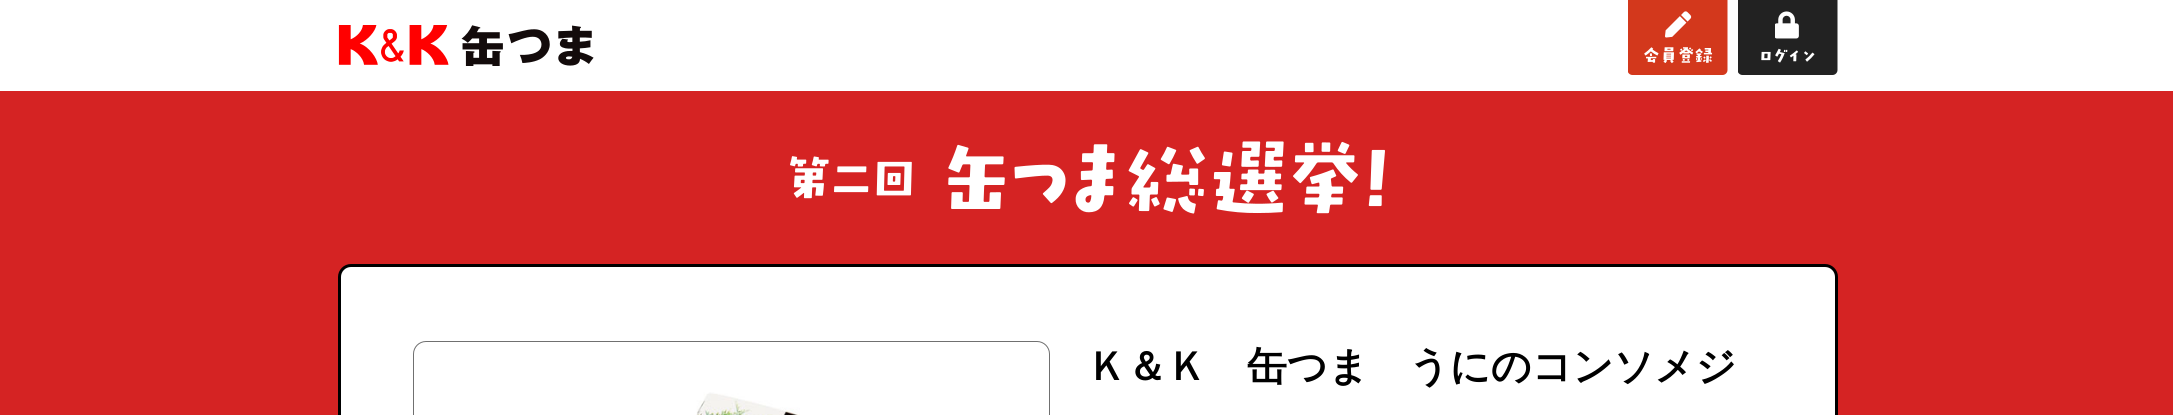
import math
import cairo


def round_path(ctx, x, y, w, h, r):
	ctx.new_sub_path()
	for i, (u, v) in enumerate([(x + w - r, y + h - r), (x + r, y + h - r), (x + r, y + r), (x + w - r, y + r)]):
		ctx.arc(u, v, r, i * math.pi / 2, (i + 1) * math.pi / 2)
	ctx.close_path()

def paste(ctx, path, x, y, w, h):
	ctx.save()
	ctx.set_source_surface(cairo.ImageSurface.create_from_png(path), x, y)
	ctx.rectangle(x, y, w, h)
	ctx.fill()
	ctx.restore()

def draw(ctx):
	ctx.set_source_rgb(1, 1, 1)
	ctx.paint()
	paste(ctx, 'media/1.png', 338, 25, 256, 41)
	paste(ctx, 'media/2.png', 1628, 0, 100, 75)
	paste(ctx, 'media/3.png', 1738, 0, 100, 75)
	ctx.set_source_rgb(0.835, 0.137, 0.137)
	ctx.rectangle(0, 91, 2173, 324)
	ctx.fill()
	paste(ctx, 'media/4.png', 790, 141, 595, 73)
	ctx.set_source_rgb(1, 1, 1)
	round_path(ctx, 339.5, 265.5, 1497, 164, 11.5)
	ctx.fill_preserve()
	ctx.set_source_rgb(0, 0, 0)
	ctx.set_line_width(3)
	ctx.stroke()
	round_path(ctx, 413.5, 341.5, 636, 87, 12.5)
	ctx.set_source_rgb(0.439, 0.439, 0.439)
	ctx.set_line_width(1)
	ctx.stroke()
	paste(ctx, 'media/5.png', 696, 392, 104, 23)
	ctx.select_font_face('WenQuanYi Zen Hei', cairo.FONT_SLANT_NORMAL, cairo.FONT_WEIGHT_BOLD)
	ctx.set_font_size(40)
	ctx.set_source_rgb(0, 0, 0)
	ctx.move_to(1087, 380)
	ctx.show_text('Ｋ＆Ｋ　缶つま　うにのコンソメジ')


surface = cairo.ImageSurface(cairo.FORMAT_RGB24, 2173, 415)
ctx = cairo.Context(surface)
options = cairo.FontOptions()
options.set_hint_metrics(cairo.HINT_METRICS_OFF)
options.set_hint_style(cairo.HINT_STYLE_NONE)
ctx.set_font_options(options)
ctx.set_miter_limit(4)
draw(ctx)
surface.write_to_png('image.png')
